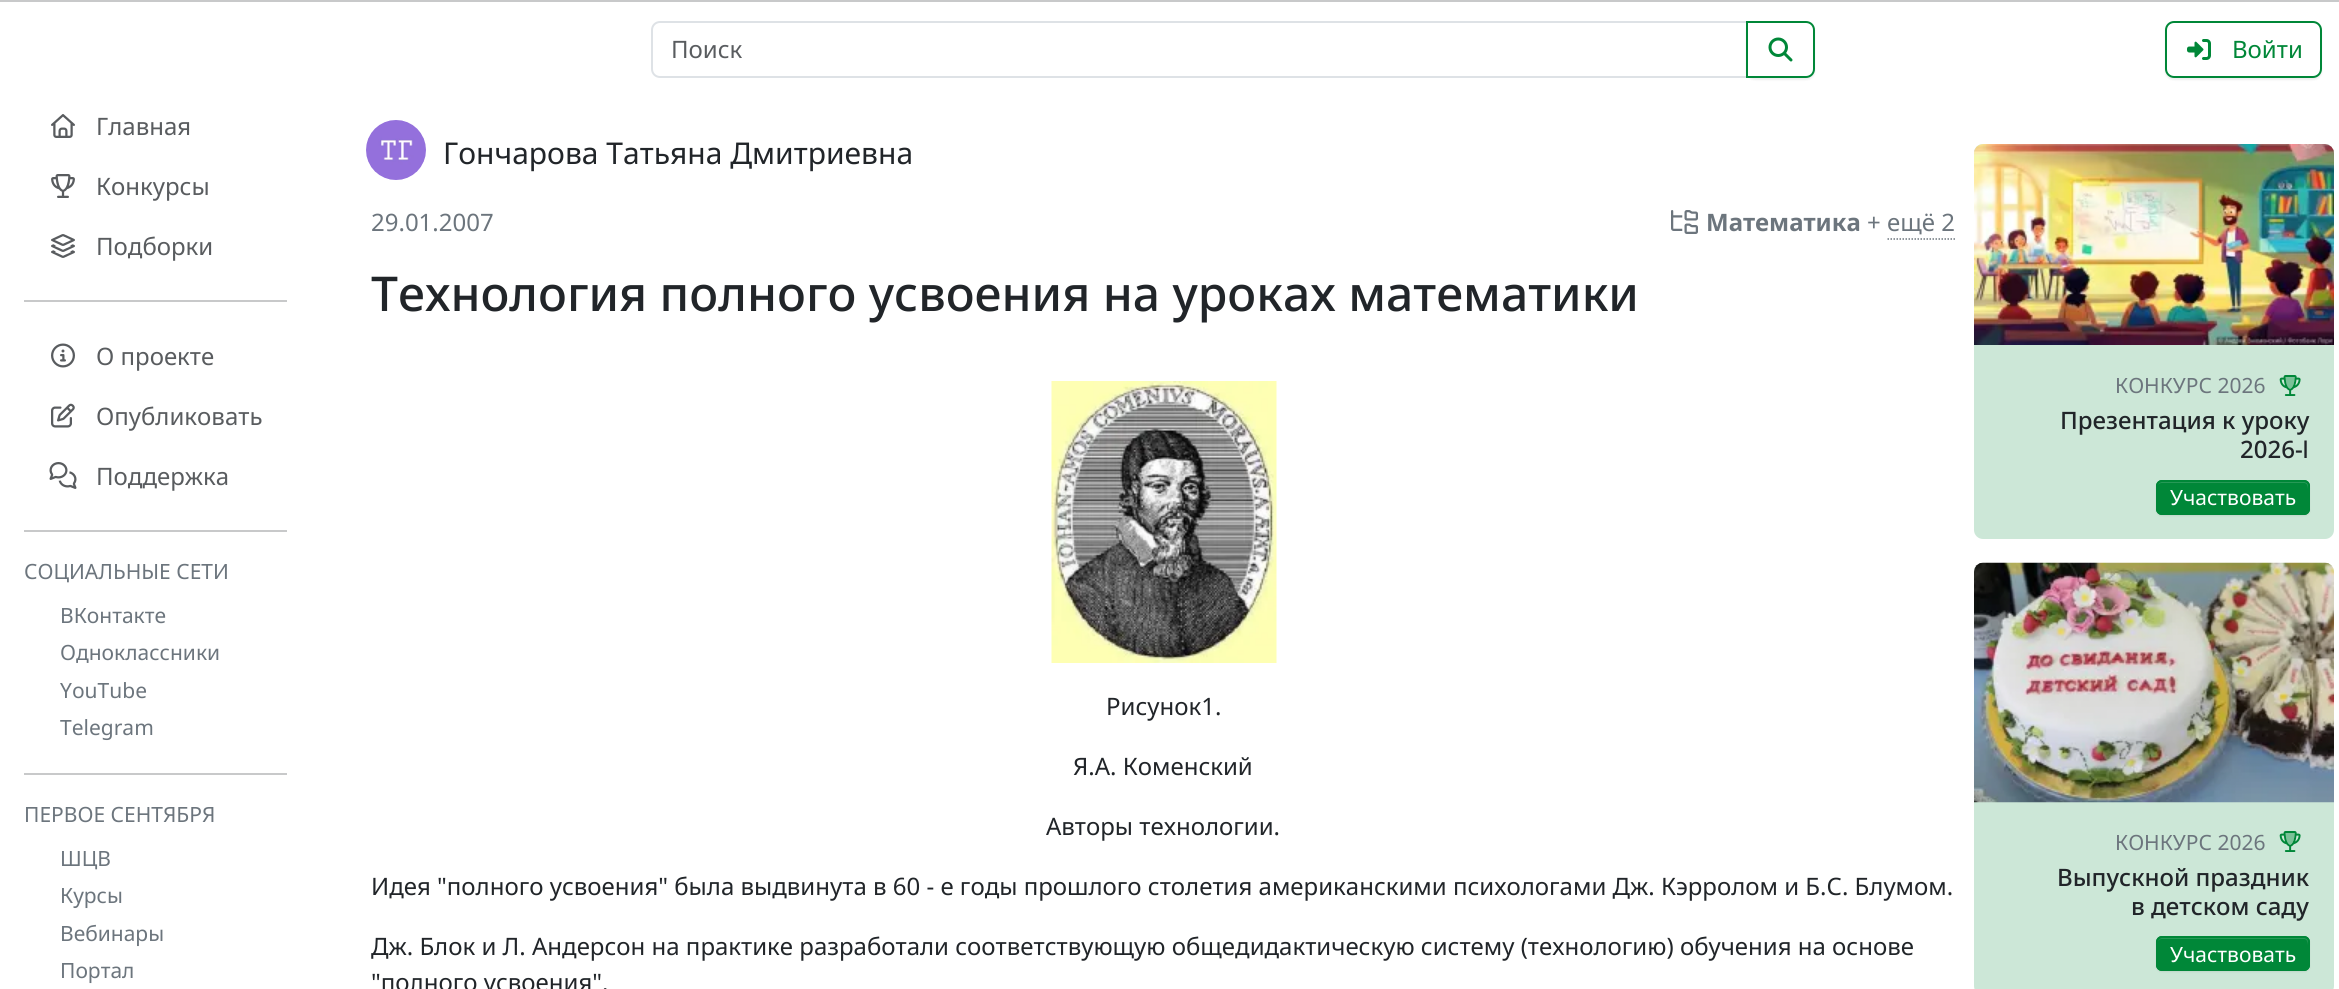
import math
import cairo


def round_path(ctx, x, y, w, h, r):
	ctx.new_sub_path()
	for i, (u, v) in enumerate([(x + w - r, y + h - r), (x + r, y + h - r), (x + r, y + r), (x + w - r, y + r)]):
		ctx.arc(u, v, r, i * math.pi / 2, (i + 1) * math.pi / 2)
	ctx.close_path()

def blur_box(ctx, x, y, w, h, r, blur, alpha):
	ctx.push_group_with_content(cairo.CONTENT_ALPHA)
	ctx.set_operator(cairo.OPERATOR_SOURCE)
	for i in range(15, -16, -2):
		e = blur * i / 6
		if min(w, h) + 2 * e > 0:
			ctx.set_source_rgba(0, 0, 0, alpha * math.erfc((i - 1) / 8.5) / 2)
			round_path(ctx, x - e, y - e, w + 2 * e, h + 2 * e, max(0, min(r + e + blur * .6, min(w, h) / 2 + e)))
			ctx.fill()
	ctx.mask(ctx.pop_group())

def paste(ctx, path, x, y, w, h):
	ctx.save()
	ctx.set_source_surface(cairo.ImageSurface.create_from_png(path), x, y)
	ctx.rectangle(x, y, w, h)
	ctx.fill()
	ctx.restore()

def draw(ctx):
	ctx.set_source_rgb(1, 1, 1)
	ctx.paint()
	ctx.set_source_rgb(0.784, 0.788, 0.792)
	ctx.rectangle(0, 0, 2339, 2)
	ctx.fill()
	ctx.new_path()
	ctx.move_to(660, 22)
	ctx.line_to(1747, 22)
	ctx.line_to(1747, 77)
	ctx.line_to(660, 77)
	ctx.curve_to(655.5, 77, 652, 73.5, 652, 69)
	ctx.line_to(652, 30)
	ctx.curve_to(652, 25.5, 655.5, 22, 660, 22)
	ctx.close_path()
	ctx.set_source_rgb(0.871, 0.886, 0.902)
	ctx.stroke()
	ctx.select_font_face('Noto Sans')
	ctx.set_font_size(24)
	ctx.set_source_rgb(0.349, 0.361, 0.373)
	ctx.move_to(671, 58)
	ctx.show_text('Поиск')
	ctx.save()
	ctx.set_fill_rule(cairo.FILL_RULE_EVEN_ODD)
	ctx.new_path()
	ctx.move_to(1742, 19)
	ctx.line_to(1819, 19)
	ctx.line_to(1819, 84)
	ctx.line_to(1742, 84)
	ctx.close_path()
	ctx.move_to(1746, 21)
	ctx.line_to(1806, 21)
	ctx.curve_to(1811, 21, 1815, 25, 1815, 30)
	ctx.line_to(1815, 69)
	ctx.curve_to(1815, 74, 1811, 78, 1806, 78)
	ctx.line_to(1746, 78)
	ctx.close_path()
	ctx.clip()
	ctx.set_source_rgb(0, 0, 0)
	blur_box(ctx, 1746, 23, 69, 57, 9, 1, 0.07)
	ctx.restore()
	ctx.new_path()
	ctx.move_to(1747, 22)
	ctx.line_to(1806, 22)
	ctx.curve_to(1810.5, 22, 1814, 25.5, 1814, 30)
	ctx.line_to(1814, 69)
	ctx.curve_to(1814, 73.5, 1810.5, 77, 1806, 77)
	ctx.line_to(1747, 77)
	ctx.close_path()
	ctx.set_source_rgb(0, 0.529, 0.22)
	ctx.stroke()
	paste(ctx, 'media/1.png', 1768, 37, 25, 25)
	ctx.save()
	ctx.set_fill_rule(cairo.FILL_RULE_EVEN_ODD)
	ctx.new_path()
	ctx.move_to(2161, 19)
	ctx.line_to(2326, 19)
	ctx.line_to(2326, 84)
	ctx.line_to(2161, 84)
	ctx.close_path()
	ctx.move_to(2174, 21)
	ctx.line_to(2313, 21)
	ctx.curve_to(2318, 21, 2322, 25, 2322, 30)
	ctx.line_to(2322, 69)
	ctx.curve_to(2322, 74, 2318, 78, 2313, 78)
	ctx.line_to(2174, 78)
	ctx.curve_to(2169, 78, 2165, 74, 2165, 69)
	ctx.line_to(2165, 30)
	ctx.curve_to(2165, 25, 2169, 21, 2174, 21)
	ctx.close_path()
	ctx.clip()
	ctx.set_source_rgb(0, 0, 0)
	blur_box(ctx, 2165, 23, 157, 57, 9, 1, 0.07)
	ctx.restore()
	round_path(ctx, 2166, 22, 155, 55, 8)
	ctx.stroke()
	paste(ctx, 'media/2.png', 2187, 39, 24, 21)
	ctx.move_to(2232, 58)
	ctx.show_text('Войти')
	paste(ctx, 'media/3.png', 51, 114, 24, 24)
	ctx.set_source_rgb(0.349, 0.361, 0.373)
	ctx.move_to(96, 135)
	ctx.show_text('Главная')
	paste(ctx, 'media/4.png', 51, 174, 24, 24)
	ctx.move_to(96, 195)
	ctx.show_text('Конкурсы')
	paste(ctx, 'media/5.png', 51, 234, 24, 24)
	ctx.move_to(96, 255)
	ctx.show_text('Подборки')
	ctx.set_source_rgb(0.784, 0.788, 0.792)
	ctx.rectangle(24, 300, 263, 2)
	ctx.fill()
	paste(ctx, 'media/6.png', 51, 343, 24, 25)
	ctx.set_source_rgb(0.349, 0.361, 0.373)
	ctx.move_to(96, 365)
	ctx.show_text('О проекте')
	paste(ctx, 'media/7.png', 51, 403, 24, 25)
	ctx.move_to(96, 425)
	ctx.show_text('Опубликовать')
	paste(ctx, 'media/8.png', 49, 462, 28, 27)
	ctx.move_to(96, 485)
	ctx.show_text('Поддержка')
	ctx.set_source_rgb(0.784, 0.788, 0.792)
	ctx.rectangle(24, 530, 263, 2)
	ctx.fill()
	ctx.set_font_size(21)
	ctx.set_source_rgb(0.424, 0.459, 0.49)
	for x, y, s in [
		(24, 579, 'СОЦИАЛЬНЫЕ СЕТИ'),
		(60, 623, 'ВКонтакте'),
		(60, 660, 'Одноклассники'),
		(60, 698, 'YouTube'),
		(60, 735, 'Telegram'),
	]:
		ctx.move_to(x, y)
		ctx.show_text(s)
	ctx.set_source_rgb(0.784, 0.788, 0.792)
	ctx.rectangle(24, 773, 263, 2)
	ctx.fill()
	ctx.set_source_rgb(0.424, 0.459, 0.49)
	for x, y, s in [
		(24, 822, 'ПЕРВОЕ СЕНТЯБРЯ'),
		(60, 866, 'ШЦВ'),
		(60, 903, 'Курсы'),
		(60, 941, 'Вебинары'),
		(60, 978, 'Портал'),
	]:
		ctx.move_to(x, y)
		ctx.show_text(s)
	paste(ctx, 'media/9.png', 366, 120, 60, 60)
	ctx.set_font_size(30)
	ctx.set_source_rgb(0.129, 0.145, 0.161)
	ctx.move_to(443, 164)
	ctx.show_text('Гончарова Татьяна Дмитриевна')
	ctx.set_font_size(24)
	ctx.set_source_rgb(0.424, 0.459, 0.49)
	ctx.move_to(371, 231)
	ctx.show_text('29.01.2007')
	paste(ctx, 'media/10.png', 1671, 210, 27, 24)
	ctx.select_font_face('Noto Sans', cairo.FONT_SLANT_NORMAL, cairo.FONT_WEIGHT_BOLD)
	ctx.move_to(1706, 231)
	ctx.show_text('Математика')
	ctx.select_font_face('Noto Sans')
	ctx.move_to(1867, 231)
	ctx.show_text('+ ещё 2')
	ctx.new_path()
	ctx.move_to(1887.5, 239)
	ctx.line_to(1955, 239)
	ctx.set_line_width(1.5)
	ctx.set_dash([1.5, 1.5])
	ctx.stroke()
	ctx.select_font_face('Noto Sans Medium')
	ctx.set_font_size(48)
	ctx.set_source_rgb(0.129, 0.145, 0.161)
	ctx.move_to(371, 311)
	ctx.show_text('Технология полного усвоения на уроках математики')
	paste(ctx, 'media/11.png', 1051, 381, 226, 282)
	ctx.select_font_face('Noto Sans')
	ctx.set_font_size(24)
	for x, y, s in [
		(1106, 715, 'Рисунок1.'),
		(1073, 775, 'Я.А. Коменский'),
		(1046, 835, 'Авторы технологии.'),
		(371, 895, 'Идея "полного усвоения" была выдвинута в 60 - е годы прошлого столетия американскими психологами Дж. Кэрролом и Б.С. Блумом.'),
		(371, 955, 'Дж. Блок и Л. Андерсон на практике разработали соответствующую общедидактическую систему (технологию) обучения на основе'),
		(371, 991, '"полного усвоения".'),
	]:
		ctx.move_to(x, y)
		ctx.show_text(s)
	ctx.set_source_rgb(0.8, 0.906, 0.843)
	round_path(ctx, 1974, 144, 360, 395, 9)
	ctx.fill()
	paste(ctx, 'media/12.png', 1974, 144, 360, 201)
	ctx.set_font_size(21)
	ctx.set_source_rgb(0.424, 0.459, 0.49)
	ctx.move_to(2115, 393)
	ctx.show_text('КОНКУРС 2026')
	paste(ctx, 'media/13.png', 2279, 375, 22, 21)
	ctx.select_font_face('Noto Sans Medium')
	ctx.set_font_size(24)
	ctx.set_source_rgb(0.129, 0.145, 0.161)
	ctx.move_to(2060, 429)
	ctx.show_text('Презентация к уроку')
	ctx.move_to(2240, 458)
	ctx.show_text('2026-')
	ctx.select_font_face('DejaVu Sans')
	ctx.move_to(2302, 458)
	ctx.show_text('Ⅰ')
	ctx.set_source_rgb(0, 0, 0)
	blur_box(ctx, 2156, 482, 154, 34, 6, 1, 0.07)
	ctx.set_source_rgb(0, 0.529, 0.22)
	round_path(ctx, 2156, 480, 154, 35, 6)
	ctx.fill()
	ctx.set_source_rgb(0.149, 0.6, 0.337)
	ctx.new_path()
	ctx.move_to(2162, 483)
	ctx.line_to(2304, 483)
	ctx.curve_to(2309, 483, 2308, 492, 2308, 495)
	ctx.line_to(2308, 511)
	ctx.curve_to(2309, 510, 2309, 509, 2309, 508)
	ctx.line_to(2309, 487)
	ctx.curve_to(2309, 484, 2307, 482, 2304, 482)
	ctx.line_to(2162, 482)
	ctx.curve_to(2159, 482, 2157, 484, 2157, 487)
	ctx.line_to(2157, 488)
	ctx.curve_to(2157, 485, 2159, 483, 2162, 483)
	ctx.close_path()
	ctx.fill()
	round_path(ctx, 2157, 481, 152, 33, 5)
	ctx.set_source_rgb(0, 0.529, 0.22)
	ctx.set_line_width(2)
	ctx.set_dash([])
	ctx.stroke()
	ctx.select_font_face('Noto Sans')
	ctx.set_font_size(21)
	ctx.set_source_rgb(1, 1, 1)
	ctx.move_to(2170, 505)
	ctx.show_text('Участвовать')
	ctx.set_source_rgb(0.8, 0.906, 0.843)
	round_path(ctx, 1974, 563, 360, 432, 9)
	ctx.fill()
	paste(ctx, 'media/14.png', 1974, 562, 360, 241)
	ctx.set_source_rgb(0.424, 0.459, 0.49)
	ctx.move_to(2115, 850)
	ctx.show_text('КОНКУРС 2026')
	paste(ctx, 'media/13.png', 2279, 831, 22, 21)
	ctx.select_font_face('Noto Sans Medium')
	ctx.set_font_size(24)
	ctx.set_source_rgb(0.129, 0.145, 0.161)
	ctx.move_to(2057, 886)
	ctx.show_text('Выпускной праздник')
	ctx.move_to(2131, 915)
	ctx.show_text('в детском саду')
	ctx.set_source_rgb(0, 0, 0)
	blur_box(ctx, 2156, 938, 154, 34, 6, 1, 0.07)
	ctx.set_source_rgb(0, 0.529, 0.22)
	round_path(ctx, 2156, 936, 154, 35, 6)
	ctx.fill()
	ctx.set_source_rgb(0.149, 0.6, 0.337)
	ctx.new_path()
	ctx.move_to(2162, 939)
	ctx.line_to(2304, 939)
	ctx.curve_to(2309, 939, 2308, 948, 2308, 951)
	ctx.line_to(2308, 967)
	ctx.curve_to(2309, 966, 2309, 965, 2309, 964)
	ctx.line_to(2309, 943)
	ctx.curve_to(2309, 940, 2307, 938, 2304, 938)
	ctx.line_to(2162, 938)
	ctx.curve_to(2159, 938, 2157, 940, 2157, 943)
	ctx.line_to(2157, 944)
	ctx.curve_to(2157, 941, 2159, 939, 2162, 939)
	ctx.close_path()
	ctx.fill()
	round_path(ctx, 2157, 937, 152, 33, 5)
	ctx.set_source_rgb(0, 0.529, 0.22)
	ctx.stroke()
	ctx.select_font_face('Noto Sans')
	ctx.set_font_size(21)
	ctx.set_source_rgb(1, 1, 1)
	ctx.move_to(2170, 962)
	ctx.show_text('Участвовать')


surface = cairo.ImageSurface(cairo.FORMAT_RGB24, 2339, 989)
ctx = cairo.Context(surface)
options = cairo.FontOptions()
options.set_hint_metrics(cairo.HINT_METRICS_OFF)
options.set_hint_style(cairo.HINT_STYLE_NONE)
ctx.set_font_options(options)
ctx.set_miter_limit(4)
draw(ctx)
surface.write_to_png('image.png')
